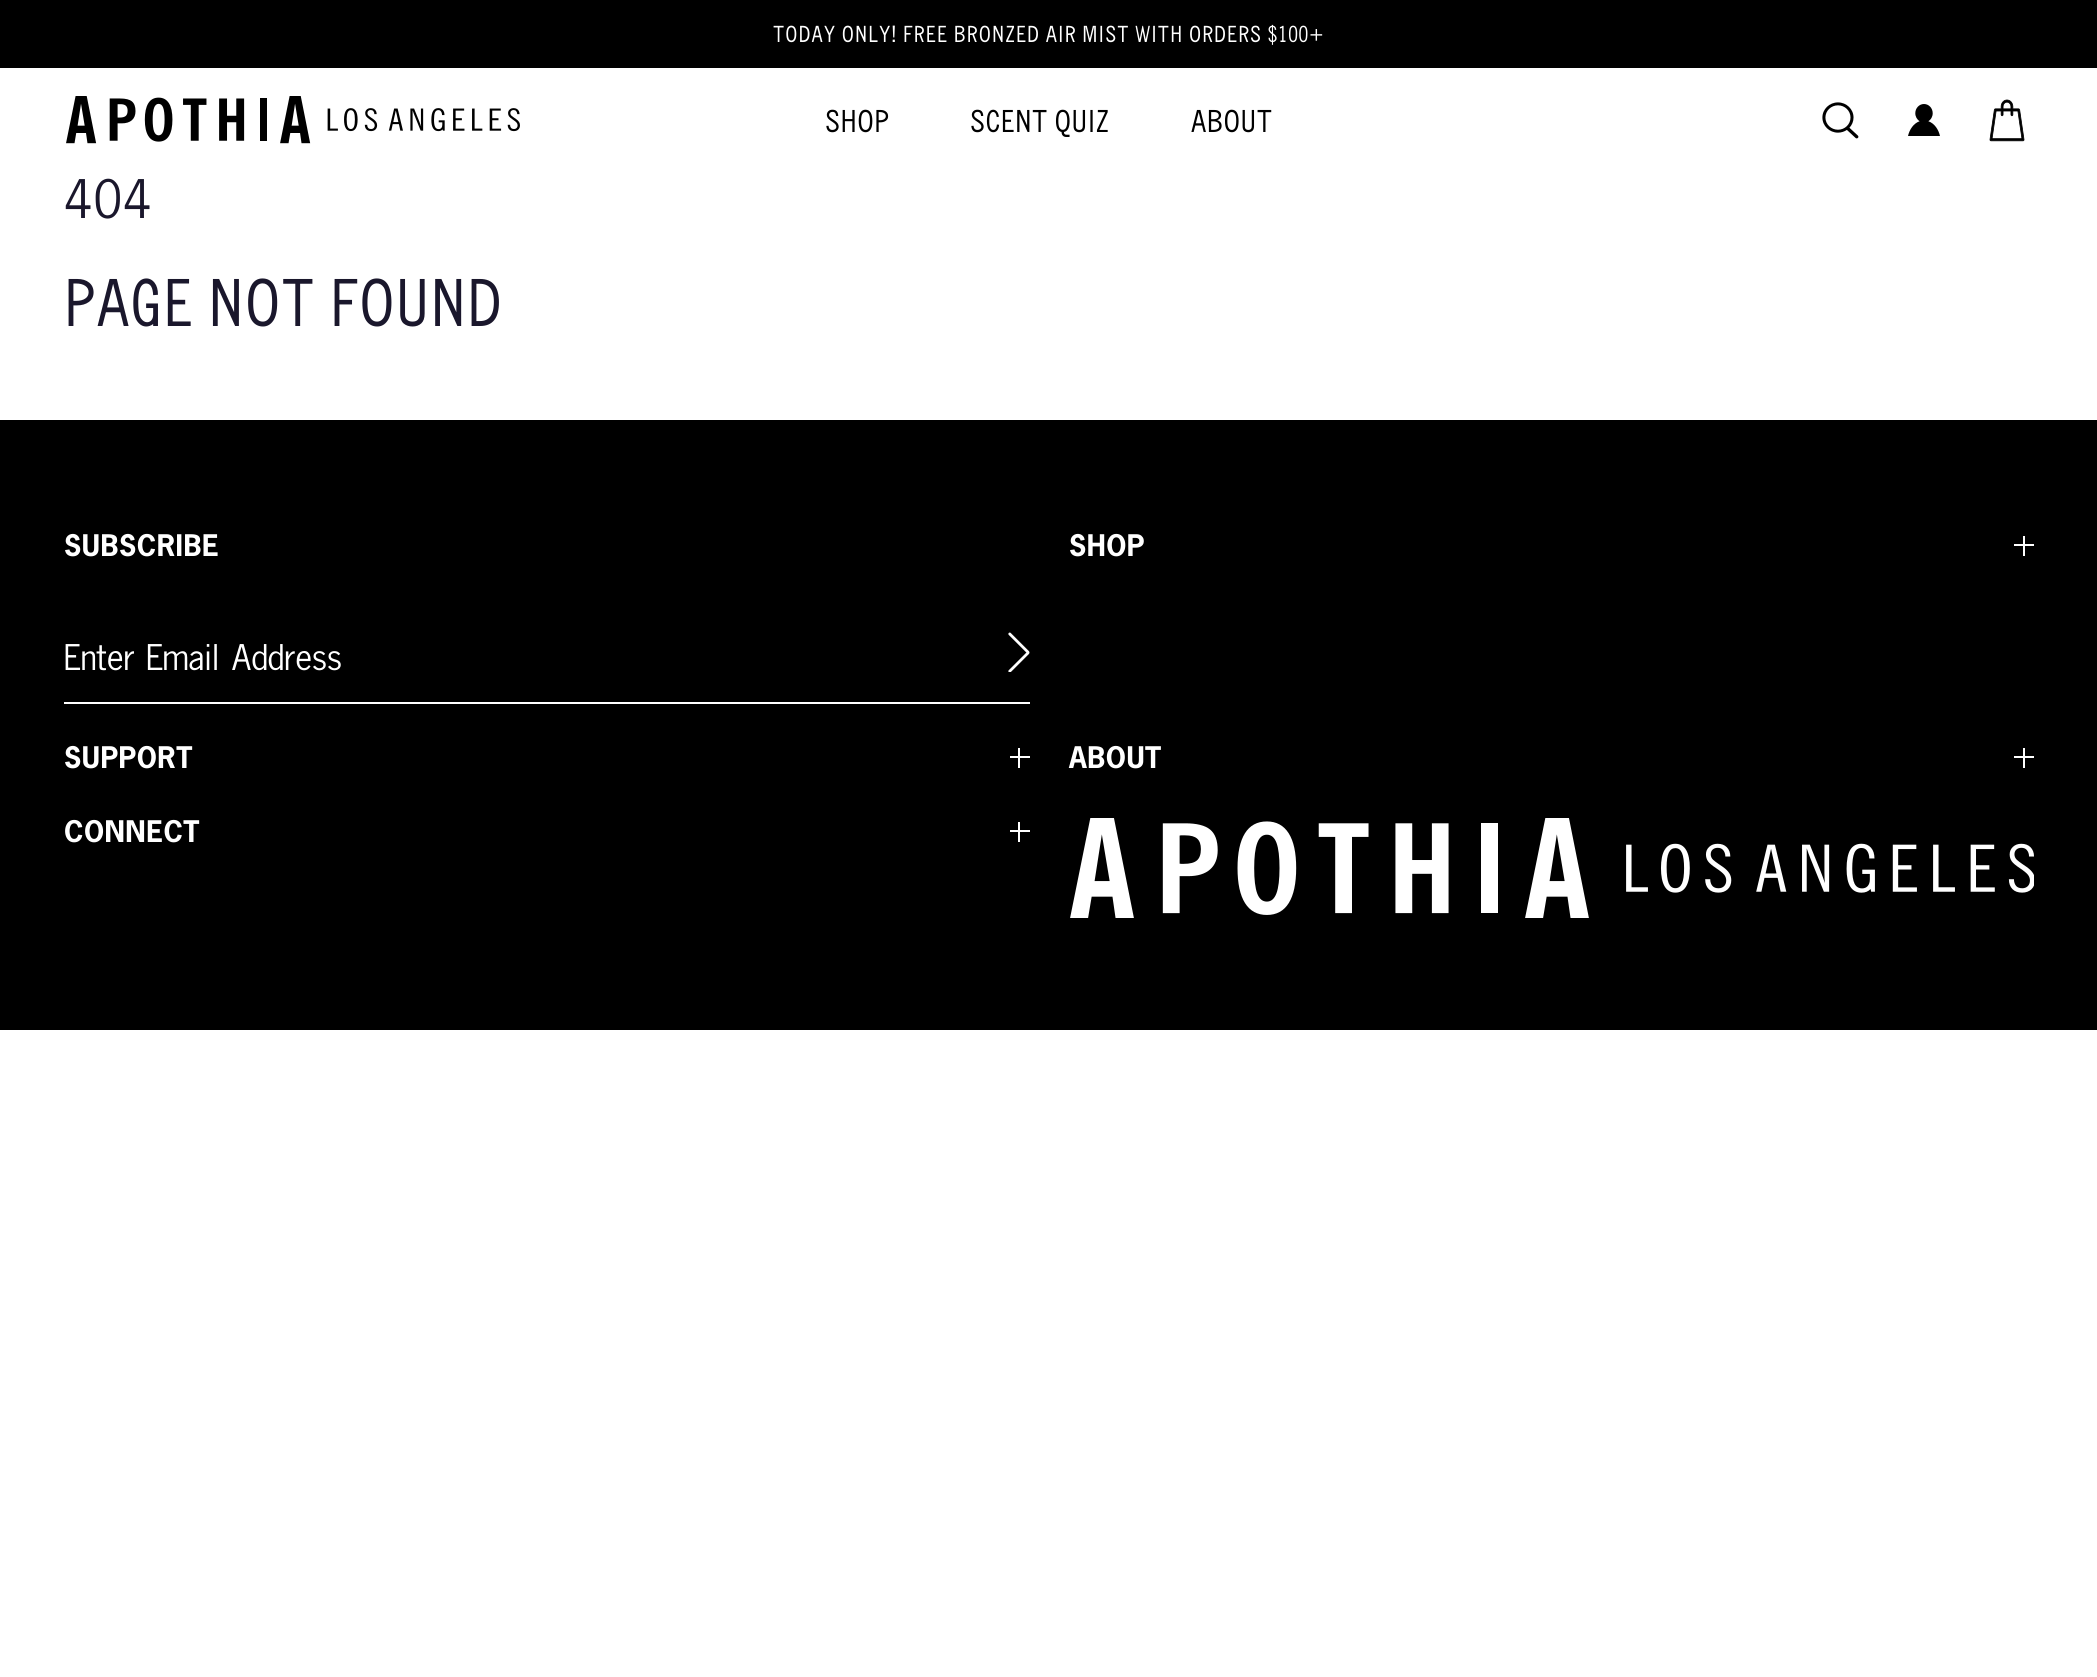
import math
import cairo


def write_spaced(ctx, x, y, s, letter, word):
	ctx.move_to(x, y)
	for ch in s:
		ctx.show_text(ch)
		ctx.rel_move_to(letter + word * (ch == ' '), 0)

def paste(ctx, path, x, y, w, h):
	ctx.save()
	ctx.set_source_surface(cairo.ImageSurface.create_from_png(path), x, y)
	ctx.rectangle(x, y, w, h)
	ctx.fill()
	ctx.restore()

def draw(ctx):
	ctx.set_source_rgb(1, 1, 1)
	ctx.paint()
	ctx.set_source_rgb(0, 0, 0)
	ctx.rectangle(0, 0, 2097, 68)
	ctx.fill()
	ctx.select_font_face('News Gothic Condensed')
	ctx.set_font_size(22)
	ctx.set_source_rgb(1, 1, 1)
	write_spaced(ctx, 773, 42, 'TODAY ONLY! FREE BRONZED AIR MIST WITH ORDERS $100+', 1.1, 0)
	paste(ctx, 'media/1.png', 66, 96, 454, 48)
	ctx.set_font_size(30)
	ctx.set_source_rgb(0, 0, 0)
	for x, y, s in [
		(825, 132, 'SHOP'),
		(970, 132, 'SCENT QUIZ'),
		(1191, 132, 'ABOUT'),
	]:
		write_spaced(ctx, x, y, s, 0.5, 0)
	paste(ctx, 'media/2.png', 1822, 102, 37, 37)
	paste(ctx, 'media/3.png', 1908, 104, 32, 32)
	paste(ctx, 'media/4.png', 1989, 99, 36, 43)
	ctx.select_font_face('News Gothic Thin')
	ctx.set_font_size(48)
	ctx.set_source_rgb(0.102, 0.09, 0.173)
	write_spaced(ctx, 64, 218, '404', 1.5, 0)
	ctx.select_font_face('News Gothic Condensed')
	ctx.set_font_size(64)
	write_spaced(ctx, 64, 326, 'PAGE NOT FOUND', 1.25, 0)
	ctx.set_source_rgb(0, 0, 0)
	ctx.rectangle(0, 420, 2097, 610)
	ctx.fill()
	ctx.select_font_face('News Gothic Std', cairo.FONT_SLANT_NORMAL, cairo.FONT_WEIGHT_BOLD)
	ctx.set_font_size(28)
	ctx.set_source_rgb(1, 1, 1)
	write_spaced(ctx, 64, 556, 'SUBSCRIBE', 0.5, 0)
	paste(ctx, 'media/5.png', 1008, 632, 22, 40)
	ctx.rectangle(64, 702, 966, 2)
	ctx.fill()
	ctx.select_font_face('News Gothic Thin')
	ctx.set_font_size(32)
	ctx.move_to(64, 670)
	ctx.show_text('Enter Email Address')
	ctx.select_font_face('News Gothic Std', cairo.FONT_SLANT_NORMAL, cairo.FONT_WEIGHT_BOLD)
	ctx.set_font_size(28)
	write_spaced(ctx, 1069, 556, 'SHOP', 0.5, 0)
	ctx.rectangle(2023, 536, 2, 20)
	ctx.fill()
	ctx.rectangle(2014, 544, 20, 2)
	ctx.fill()
	write_spaced(ctx, 64, 768, 'SUPPORT', 0.5, 0)
	ctx.rectangle(1018, 748, 2, 20)
	ctx.fill()
	ctx.rectangle(1010, 756, 20, 2)
	ctx.fill()
	write_spaced(ctx, 1069, 768, 'ABOUT', 0.5, 0)
	ctx.rectangle(2023, 748, 2, 20)
	ctx.fill()
	ctx.rectangle(2014, 756, 20, 2)
	ctx.fill()
	write_spaced(ctx, 64, 842, 'CONNECT', 0.5, 0)
	ctx.rectangle(1018, 822, 2, 20)
	ctx.fill()
	ctx.rectangle(1010, 830, 20, 2)
	ctx.fill()
	paste(ctx, 'media/6.png', 1070, 818, 964, 100)


surface = cairo.ImageSurface(cairo.FORMAT_RGB24, 2097, 1677)
ctx = cairo.Context(surface)
options = cairo.FontOptions()
options.set_hint_metrics(cairo.HINT_METRICS_OFF)
options.set_hint_style(cairo.HINT_STYLE_NONE)
ctx.set_font_options(options)
ctx.set_miter_limit(4)
draw(ctx)
surface.write_to_png('image.png')
